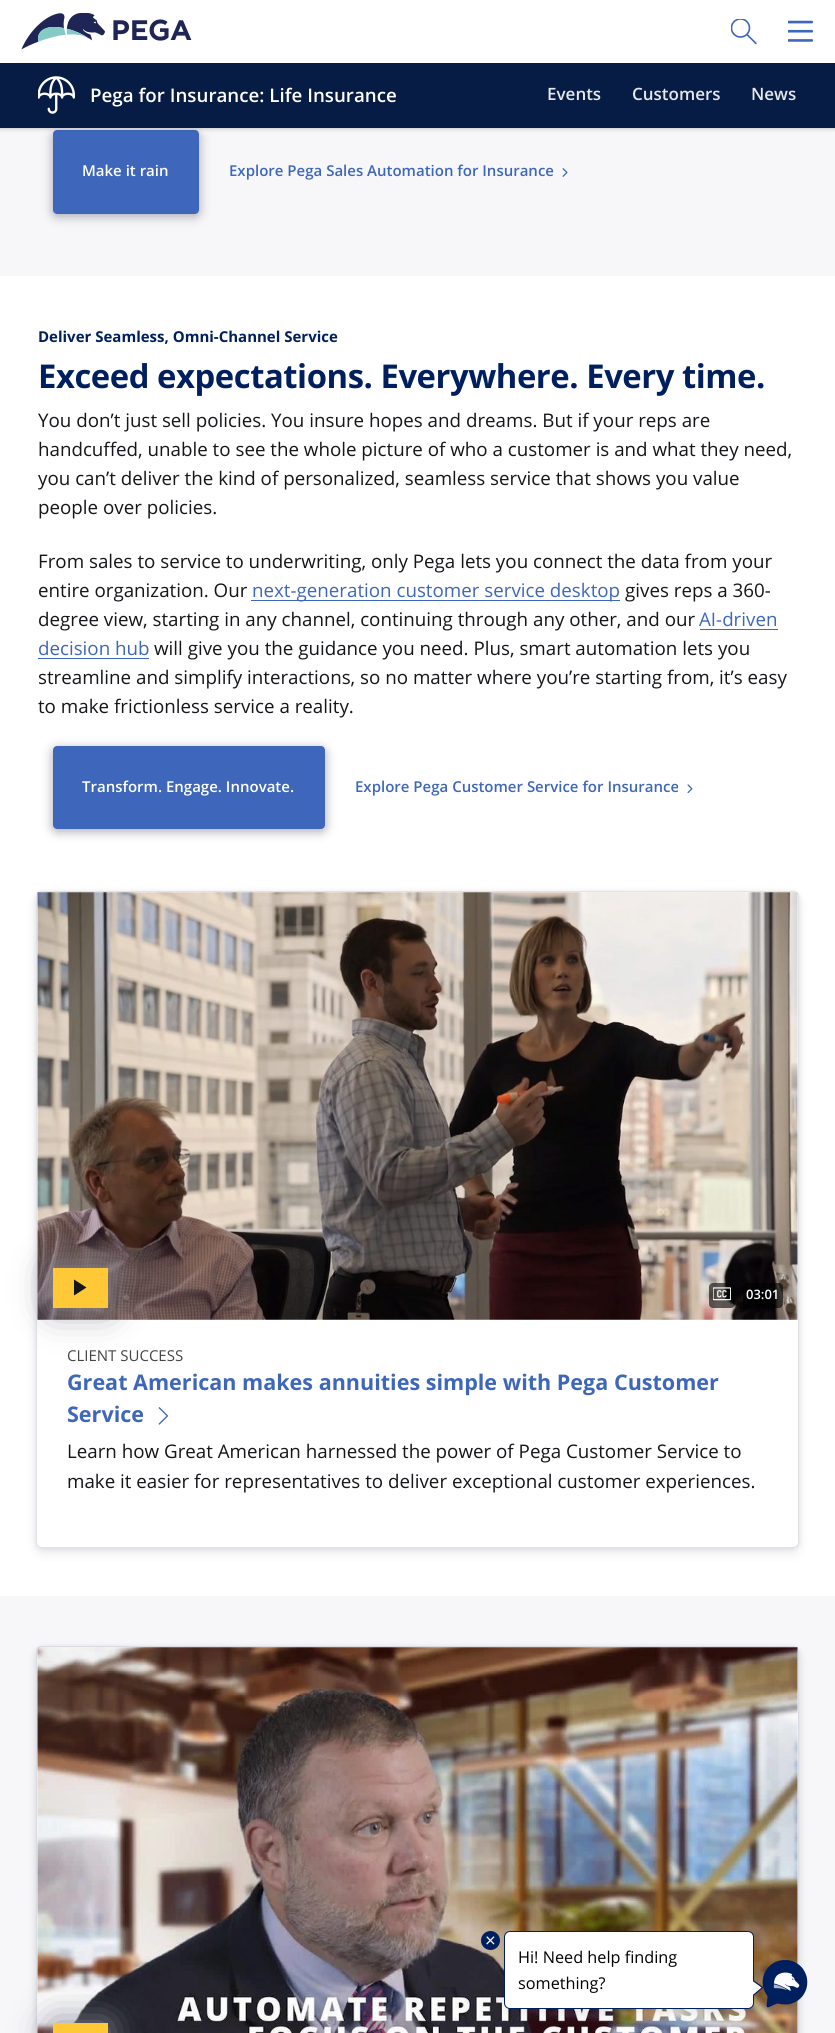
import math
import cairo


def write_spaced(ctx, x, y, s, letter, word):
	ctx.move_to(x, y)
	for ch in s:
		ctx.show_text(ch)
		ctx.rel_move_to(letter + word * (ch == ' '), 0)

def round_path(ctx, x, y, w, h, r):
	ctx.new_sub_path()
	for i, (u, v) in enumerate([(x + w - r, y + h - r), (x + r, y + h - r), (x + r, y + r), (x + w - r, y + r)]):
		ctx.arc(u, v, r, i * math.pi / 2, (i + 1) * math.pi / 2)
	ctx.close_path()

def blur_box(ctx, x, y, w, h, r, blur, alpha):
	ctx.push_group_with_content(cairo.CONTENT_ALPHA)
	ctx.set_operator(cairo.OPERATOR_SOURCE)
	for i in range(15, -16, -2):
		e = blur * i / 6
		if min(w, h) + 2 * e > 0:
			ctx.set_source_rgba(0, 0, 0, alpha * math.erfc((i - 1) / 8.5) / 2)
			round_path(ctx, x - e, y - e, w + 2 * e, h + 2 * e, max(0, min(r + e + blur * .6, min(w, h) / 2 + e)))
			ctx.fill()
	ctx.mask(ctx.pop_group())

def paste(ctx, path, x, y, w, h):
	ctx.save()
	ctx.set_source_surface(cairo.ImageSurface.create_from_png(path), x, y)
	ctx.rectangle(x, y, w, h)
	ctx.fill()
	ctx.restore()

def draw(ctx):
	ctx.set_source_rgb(1, 1, 1)
	ctx.paint()
	ctx.set_source_rgb(0.965, 0.965, 0.976)
	ctx.rectangle(0, 128, 835, 148)
	ctx.fill()
	ctx.set_source_rgb(0.243, 0.404, 0.733)
	round_path(ctx, 53, 130, 146, 84, 4)
	ctx.fill()
	ctx.set_source_rgb(0, 0, 0)
	blur_box(ctx, 0, 64, 835, 65, 0, 2, 0.2)
	ctx.save()
	ctx.set_fill_rule(cairo.FILL_RULE_EVEN_ODD)
	ctx.new_path()
	ctx.move_to(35, 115)
	ctx.line_to(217, 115)
	ctx.line_to(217, 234)
	ctx.line_to(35, 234)
	ctx.close_path()
	ctx.move_to(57, 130)
	ctx.line_to(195, 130)
	ctx.curve_to(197, 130, 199, 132, 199, 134)
	ctx.line_to(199, 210)
	ctx.curve_to(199, 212, 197, 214, 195, 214)
	ctx.line_to(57, 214)
	ctx.curve_to(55, 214, 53, 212, 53, 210)
	ctx.line_to(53, 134)
	ctx.curve_to(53, 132, 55, 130, 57, 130)
	ctx.close_path()
	ctx.clip()
	ctx.set_source_rgb(0.553, 0.557, 0.6)
	blur_box(ctx, 53, 133, 146, 83, 4, 5.5, 0.8)
	ctx.restore()
	ctx.set_source_rgb(0.031, 0.11, 0.271)
	ctx.rectangle(0, 63, 835, 65)
	ctx.fill()
	ctx.set_source_rgb(0.024, 0.039, 0.141)
	blur_box(ctx, -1, 0, 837, 65, 0, 1, 0.08)
	ctx.set_source_rgb(1, 1, 1)
	ctx.rectangle(0, 0, 835, 63)
	ctx.fill()
	paste(ctx, 'media/1.png', 21, 13, 171, 37)
	paste(ctx, 'media/2.png', 731, 19, 26, 26)
	paste(ctx, 'media/3.png', 788, 20, 26, 22)
	paste(ctx, 'media/4.png', 38, 76, 37, 38)
	ctx.select_font_face('Open Sans SemiBold')
	ctx.set_font_size(18.75)
	ctx.move_to(90, 102)
	ctx.show_text('Pega for Insurance: Life Insurance')
	ctx.set_font_size(17)
	ctx.set_source_rgb(0.902, 0.91, 0.925)
	for x, y, s in [
		(547, 100, 'Events'),
		(632, 100, 'Customers'),
		(751, 100, 'News'),
	]:
		ctx.move_to(x, y)
		ctx.show_text(s)
	ctx.set_font_size(15)
	ctx.set_source_rgb(1, 1, 1)
	ctx.move_to(82, 176)
	ctx.show_text('Make it rain')
	ctx.set_source_rgb(0.243, 0.404, 0.733)
	ctx.move_to(229, 176)
	ctx.show_text('Explore Pega Sales Automation for Insurance')
	paste(ctx, 'media/5.png', 562, 168, 6, 9)
	ctx.select_font_face('Open Sans', cairo.FONT_SLANT_NORMAL, cairo.FONT_WEIGHT_BOLD)
	ctx.set_source_rgb(0, 0.122, 0.373)
	ctx.move_to(38, 342)
	ctx.show_text('Deliver Seamless, Omni-Channel Service')
	ctx.set_font_size(32.8)
	write_spaced(ctx, 38, 388, 'Exceed expectations. Everywhere. Every time.', -0.45, 0)
	ctx.select_font_face('Open Sans')
	ctx.set_font_size(18.75)
	ctx.set_source_rgb(0.082, 0.086, 0.098)
	for x, y, s in [
		(38, 427, 'You don’t just sell policies. You insure hopes and dreams. But if your reps are'),
		(38, 456, 'handcuffed, unable to see the whole picture of who a customer is and what they need,'),
		(38, 485, 'you can’t deliver the kind of personalized, seamless service that shows you value'),
		(38, 514, 'people over policies.'),
		(38, 568, 'From sales to service to underwriting, only Pega lets you connect the data from your'),
		(38, 597, 'entire organization. Our'),
	]:
		ctx.move_to(x, y)
		ctx.show_text(s)
	ctx.set_source_rgb(0.243, 0.404, 0.733)
	ctx.rectangle(251, 600, 369, 1)
	ctx.fill()
	ctx.move_to(252, 597)
	ctx.show_text('next-generation customer service desktop')
	ctx.set_source_rgb(0.082, 0.086, 0.098)
	ctx.move_to(625, 597)
	ctx.show_text('gives reps a 360-')
	ctx.move_to(38, 626)
	ctx.show_text('degree view, starting in any channel, continuing through any other, and our')
	ctx.set_source_rgb(0.243, 0.404, 0.733)
	ctx.move_to(699, 626)
	ctx.show_text('AI-driven')
	ctx.rectangle(700, 629, 78, 1)
	ctx.fill()
	ctx.move_to(38, 655)
	ctx.show_text('decision hub')
	ctx.rectangle(38, 658, 111, 1)
	ctx.fill()
	ctx.set_source_rgb(0.082, 0.086, 0.098)
	for x, y, s in [
		(154, 655, 'will give you the guidance you need. Plus, smart automation lets you'),
		(38, 684, 'streamline and simplify interactions, so no matter where you’re starting from, it’s easy'),
		(38, 713, 'to make frictionless service a reality.'),
	]:
		ctx.move_to(x, y)
		ctx.show_text(s)
	ctx.set_source_rgb(0.243, 0.404, 0.733)
	round_path(ctx, 53, 746, 272, 83, 4)
	ctx.fill()
	ctx.save()
	ctx.set_fill_rule(cairo.FILL_RULE_EVEN_ODD)
	ctx.new_path()
	ctx.move_to(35, 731)
	ctx.line_to(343, 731)
	ctx.line_to(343, 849)
	ctx.line_to(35, 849)
	ctx.close_path()
	ctx.move_to(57, 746)
	ctx.line_to(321, 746)
	ctx.curve_to(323, 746, 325, 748, 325, 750)
	ctx.line_to(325, 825)
	ctx.curve_to(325, 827, 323, 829, 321, 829)
	ctx.line_to(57, 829)
	ctx.curve_to(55, 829, 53, 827, 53, 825)
	ctx.line_to(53, 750)
	ctx.curve_to(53, 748, 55, 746, 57, 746)
	ctx.close_path()
	ctx.clip()
	ctx.set_source_rgb(0.553, 0.557, 0.6)
	blur_box(ctx, 53, 749, 272, 82, 4, 5.5, 0.8)
	ctx.restore()
	ctx.select_font_face('Open Sans SemiBold')
	ctx.set_font_size(15)
	ctx.set_source_rgb(1, 1, 1)
	ctx.move_to(82, 792)
	ctx.show_text('Transform. Engage. Innovate.')
	ctx.set_source_rgb(0.243, 0.404, 0.733)
	ctx.move_to(355, 792)
	ctx.show_text('Explore Pega Customer Service for Insurance')
	paste(ctx, 'media/6.png', 687, 784, 6, 10)
	ctx.set_source_rgb(0.169, 0.184, 0.271)
	blur_box(ctx, 36, 898, 763, 656, 6, 6, 0.08)
	blur_box(ctx, 35, 891, 765, 659, 8, 2.5, 0.1)
	ctx.set_source_rgb(1, 1, 1)
	round_path(ctx, 36, 891, 763, 657, 6)
	ctx.fill()
	round_path(ctx, 36.5, 891.5, 762, 656, 5.5)
	ctx.set_source_rgba(0.176, 0.243, 0.38, 0.15)
	ctx.set_line_width(1)
	ctx.stroke()
	paste(ctx, 'media/7.png', 37, 892, 761, 428)
	ctx.set_source_rgb(0.553, 0.557, 0.6)
	blur_box(ctx, 53, 1268, 55, 40, 0, 19, 1)
	ctx.set_source_rgb(1, 0.784, 0.212)
	ctx.rectangle(53, 1268, 55, 40)
	ctx.fill()
	ctx.set_source_rgb(0.082, 0.086, 0.098)
	ctx.new_path()
	ctx.move_to(74, 1279.5)
	ctx.line_to(74, 1295.5)
	ctx.line_to(86.5, 1287.5)
	ctx.close_path()
	ctx.fill()
	ctx.set_source_rgba(0, 0, 0, 0.6)
	round_path(ctx, 709, 1283, 26, 25, 4)
	ctx.fill()
	paste(ctx, 'media/8.png', 713, 1287, 18, 14)
	round_path(ctx, 743, 1283, 40, 25, 4)
	ctx.fill()
	ctx.set_font_size(13)
	ctx.set_source_rgb(1, 1, 1)
	ctx.move_to(746, 1299)
	ctx.show_text('03:01')
	ctx.select_font_face('Open Sans')
	ctx.set_font_size(15)
	ctx.set_source_rgb(0.267, 0.271, 0.278)
	ctx.move_to(67, 1361)
	ctx.show_text('CLIENT SUCCESS')
	ctx.select_font_face('Open Sans', cairo.FONT_SLANT_NORMAL, cairo.FONT_WEIGHT_BOLD)
	ctx.set_font_size(21.55)
	ctx.set_source_rgb(0.243, 0.404, 0.733)
	ctx.move_to(67, 1390)
	ctx.show_text('Great American makes annuities simple with Pega Customer')
	ctx.move_to(67, 1422)
	ctx.show_text('Service')
	paste(ctx, 'media/9.png', 158, 1407, 10, 18)
	ctx.select_font_face('Open Sans')
	ctx.set_font_size(18.75)
	ctx.set_source_rgb(0.082, 0.086, 0.098)
	ctx.move_to(67, 1458)
	ctx.show_text('Learn how Great American harnessed the power of Pega Customer Service to')
	ctx.move_to(67, 1488)
	ctx.show_text('make it easier for representatives to deliver exceptional customer experiences.')
	ctx.set_source_rgb(0.965, 0.965, 0.976)
	ctx.rectangle(0, 1596, 835, 437)
	ctx.fill()
	ctx.set_source_rgb(0.165, 0.176, 0.267)
	blur_box(ctx, 36, 1653, 763, 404, 6, 6, 0.08)
	blur_box(ctx, 35, 1646, 765, 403, 8, 2.5, 0.1)
	ctx.set_source_rgb(0.969, 0.969, 0.976)
	round_path(ctx, 36.5, 1646.5, 762, 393, 5.5)
	ctx.fill_preserve()
	ctx.set_source_rgb(0.851, 0.859, 0.886)
	ctx.stroke()
	paste(ctx, 'media/10.png', 37, 1647, 761, 386)
	ctx.set_source_rgb(0.553, 0.557, 0.6)
	blur_box(ctx, 53, 2023, 55, 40, 0, 19, 1)
	ctx.set_source_rgb(1, 0.784, 0.212)
	ctx.rectangle(53, 2023, 55, 10)
	ctx.fill()
	ctx.set_source_rgb(0, 0, 0)
	blur_box(ctx, 504, 1934, 250, 77, 6, 6, 0.1)
	ctx.set_source_rgb(1, 1, 1)
	round_path(ctx, 504.5, 1931.5, 249, 77, 5.5)
	ctx.fill_preserve()
	ctx.set_source_rgb(0, 0.122, 0.373)
	ctx.stroke()
	ctx.arc(490.5, 1940.5, 9.5, 0, 2 * math.pi)
	ctx.fill()
	ctx.set_source_rgb(1, 1, 1)
	ctx.move_to(485, 1947)
	ctx.show_text('×')
	ctx.set_font_size(16.25)
	ctx.set_source_rgb(0, 0, 0)
	ctx.move_to(518, 1963)
	ctx.show_text('Hi! Need help finding')
	ctx.move_to(518, 1989)
	ctx.show_text('something?')
	ctx.save()
	ctx.rectangle(753, 1971, 12, 25)
	ctx.clip()
	ctx.set_source_rgb(1, 1, 1)
	ctx.new_path()
	ctx.move_to(740, 1971)
	ctx.line_to(762.5, 1987.5)
	ctx.line_to(752.5, 1996)
	ctx.close_path()
	ctx.fill_preserve()
	ctx.set_source_rgb(0, 0.122, 0.373)
	ctx.set_line_width(1.2)
	ctx.stroke()
	ctx.restore()
	paste(ctx, 'media/11.png', 762, 1960, 46, 48)


surface = cairo.ImageSurface(cairo.FORMAT_RGB24, 835, 2033)
ctx = cairo.Context(surface)
options = cairo.FontOptions()
options.set_hint_metrics(cairo.HINT_METRICS_OFF)
options.set_hint_style(cairo.HINT_STYLE_NONE)
ctx.set_font_options(options)
ctx.set_miter_limit(4)
draw(ctx)
surface.write_to_png('image.png')
